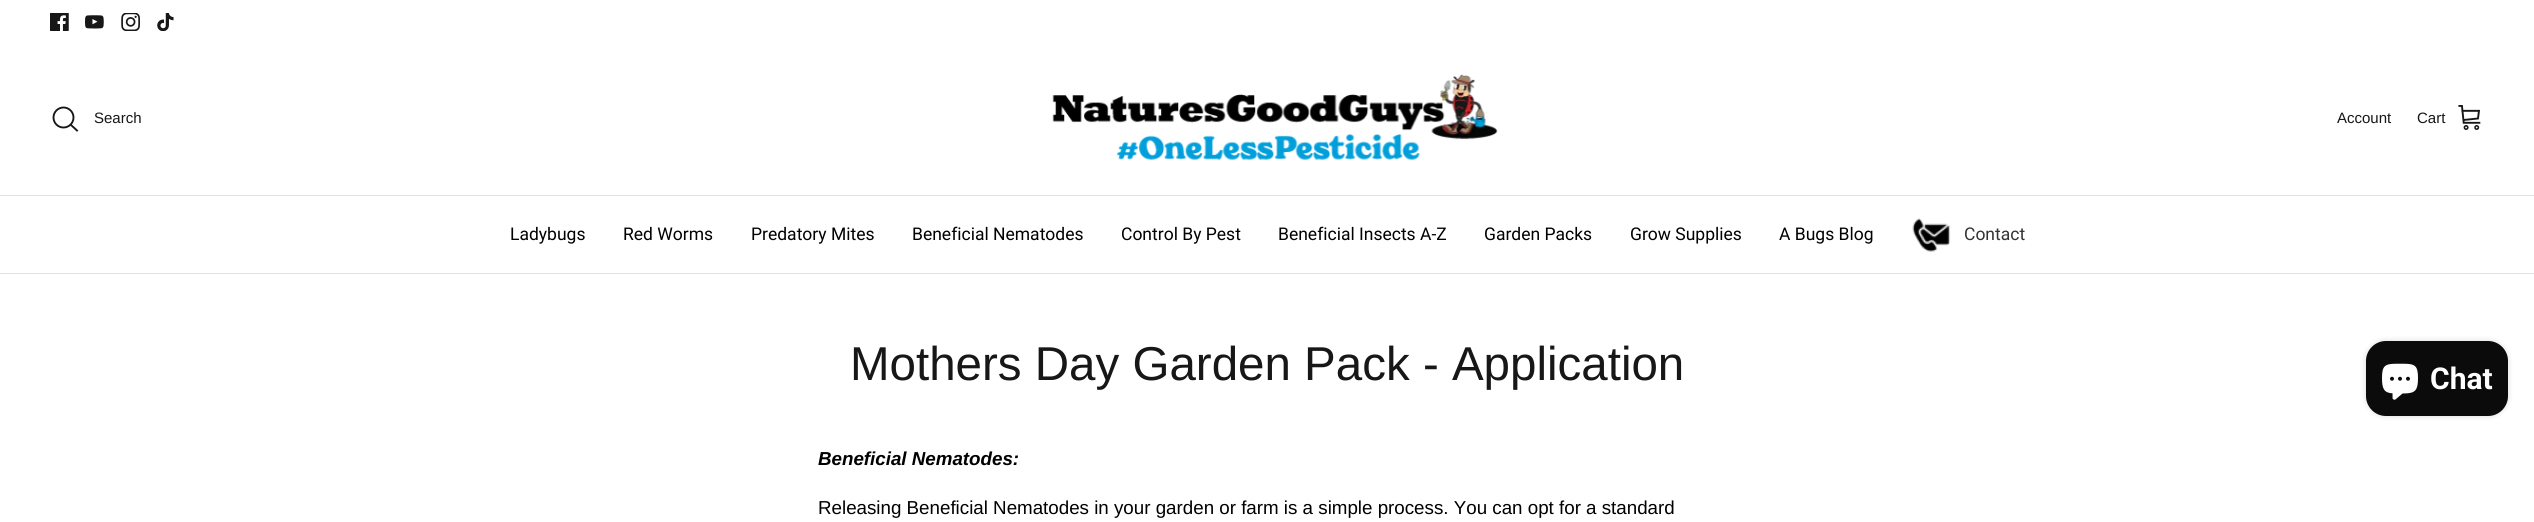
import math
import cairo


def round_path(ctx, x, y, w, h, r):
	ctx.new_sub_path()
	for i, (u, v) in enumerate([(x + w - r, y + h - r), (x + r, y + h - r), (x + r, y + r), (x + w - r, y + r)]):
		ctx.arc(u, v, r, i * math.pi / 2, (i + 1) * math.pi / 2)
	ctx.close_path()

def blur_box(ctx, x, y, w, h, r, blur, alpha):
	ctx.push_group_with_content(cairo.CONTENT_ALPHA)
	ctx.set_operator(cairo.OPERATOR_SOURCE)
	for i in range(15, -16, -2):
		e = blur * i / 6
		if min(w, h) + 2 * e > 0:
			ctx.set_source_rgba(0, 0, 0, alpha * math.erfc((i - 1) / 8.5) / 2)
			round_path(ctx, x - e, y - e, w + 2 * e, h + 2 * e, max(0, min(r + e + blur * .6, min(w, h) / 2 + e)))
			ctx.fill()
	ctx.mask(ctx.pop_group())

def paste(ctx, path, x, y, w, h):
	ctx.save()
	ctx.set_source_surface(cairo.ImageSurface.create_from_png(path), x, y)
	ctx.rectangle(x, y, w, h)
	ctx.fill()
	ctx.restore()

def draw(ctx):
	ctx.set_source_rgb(1, 1, 1)
	ctx.paint()
	paste(ctx, 'media/1.png', 50, 13, 19, 18)
	paste(ctx, 'media/2.png', 85, 15, 19, 14)
	paste(ctx, 'media/3.png', 121, 13, 19, 18)
	paste(ctx, 'media/4.png', 157, 13, 17, 18)
	ctx.set_source_rgb(0.875, 0.89, 0.91)
	ctx.rectangle(0, 195, 2534, 1)
	ctx.fill()
	ctx.arc(63.5, 117.5, 10, 0, 2 * math.pi)
	ctx.set_source_rgb(0.09, 0.09, 0.09)
	ctx.set_line_width(1.9)
	ctx.stroke()
	ctx.select_font_face('Arimo')
	ctx.set_font_size(15)
	ctx.move_to(94, 123)
	ctx.show_text('Search')
	ctx.new_path()
	ctx.move_to(71, 125)
	ctx.line_to(77, 130.5)
	ctx.set_line_cap(cairo.LINE_CAP_SQUARE)
	ctx.stroke()
	paste(ctx, 'media/5.png', 1052, 74, 446, 87)
	ctx.move_to(2337, 123)
	ctx.show_text('Account')
	ctx.move_to(2417, 123)
	ctx.show_text('Cart')
	paste(ctx, 'media/6.png', 2458, 105, 23, 25)
	ctx.set_source_rgb(0.875, 0.89, 0.91)
	ctx.rectangle(0, 273, 2534, 1)
	ctx.fill()
	ctx.select_font_face('Roboto')
	ctx.set_font_size(17.5)
	ctx.set_source_rgb(0, 0, 0)
	for x, y, s in [
		(510, 240, 'Ladybugs'),
		(623, 240, 'Red Worms'),
		(751, 240, 'Predatory Mites'),
		(912, 240, 'Beneficial Nematodes'),
		(1121, 240, 'Control By Pest'),
		(1278, 240, 'Beneficial Insects A-Z'),
		(1484, 240, 'Garden Packs'),
		(1630, 240, 'Grow Supplies'),
		(1779, 240, 'A Bugs Blog'),
	]:
		ctx.move_to(x, y)
		ctx.show_text(s)
	paste(ctx, 'media/7.png', 1912, 218, 39, 34)
	ctx.set_source_rgb(0.2, 0.2, 0.2)
	ctx.move_to(1964, 240)
	ctx.show_text('Contact')
	ctx.select_font_face('Arimo')
	ctx.set_font_size(47.5)
	ctx.set_source_rgb(0.09, 0.09, 0.09)
	ctx.move_to(850, 380)
	ctx.show_text('Mothers Day Garden Pack - Application')
	ctx.select_font_face('Arimo', cairo.FONT_SLANT_ITALIC, cairo.FONT_WEIGHT_BOLD)
	ctx.set_font_size(18.75)
	ctx.set_source_rgb(0, 0, 0)
	ctx.move_to(818, 465)
	ctx.show_text('Beneficial Nematodes:')
	ctx.select_font_face('Arimo')
	ctx.move_to(818, 514)
	ctx.show_text('Releasing Beneficial Nematodes in your garden or farm is a simple process. You can opt for a standard')
	ctx.set_source_rgb(0, 0, 0)
	blur_box(ctx, 2366, 341, 142, 75, 20, 3, 0.15)
	ctx.set_source_rgb(0.043, 0.043, 0.043)
	round_path(ctx, 2366, 341, 142, 75, 20)
	ctx.fill()
	paste(ctx, 'media/8.png', 2382, 363, 36, 37)
	ctx.select_font_face('Roboto', cairo.FONT_SLANT_NORMAL, cairo.FONT_WEIGHT_BOLD)
	ctx.set_font_size(30)
	ctx.set_source_rgb(1, 1, 1)
	ctx.move_to(2430, 389)
	ctx.show_text('Chat')


surface = cairo.ImageSurface(cairo.FORMAT_RGB24, 2534, 522)
ctx = cairo.Context(surface)
options = cairo.FontOptions()
options.set_hint_metrics(cairo.HINT_METRICS_OFF)
options.set_hint_style(cairo.HINT_STYLE_NONE)
ctx.set_font_options(options)
ctx.set_miter_limit(4)
draw(ctx)
surface.write_to_png('image.png')
